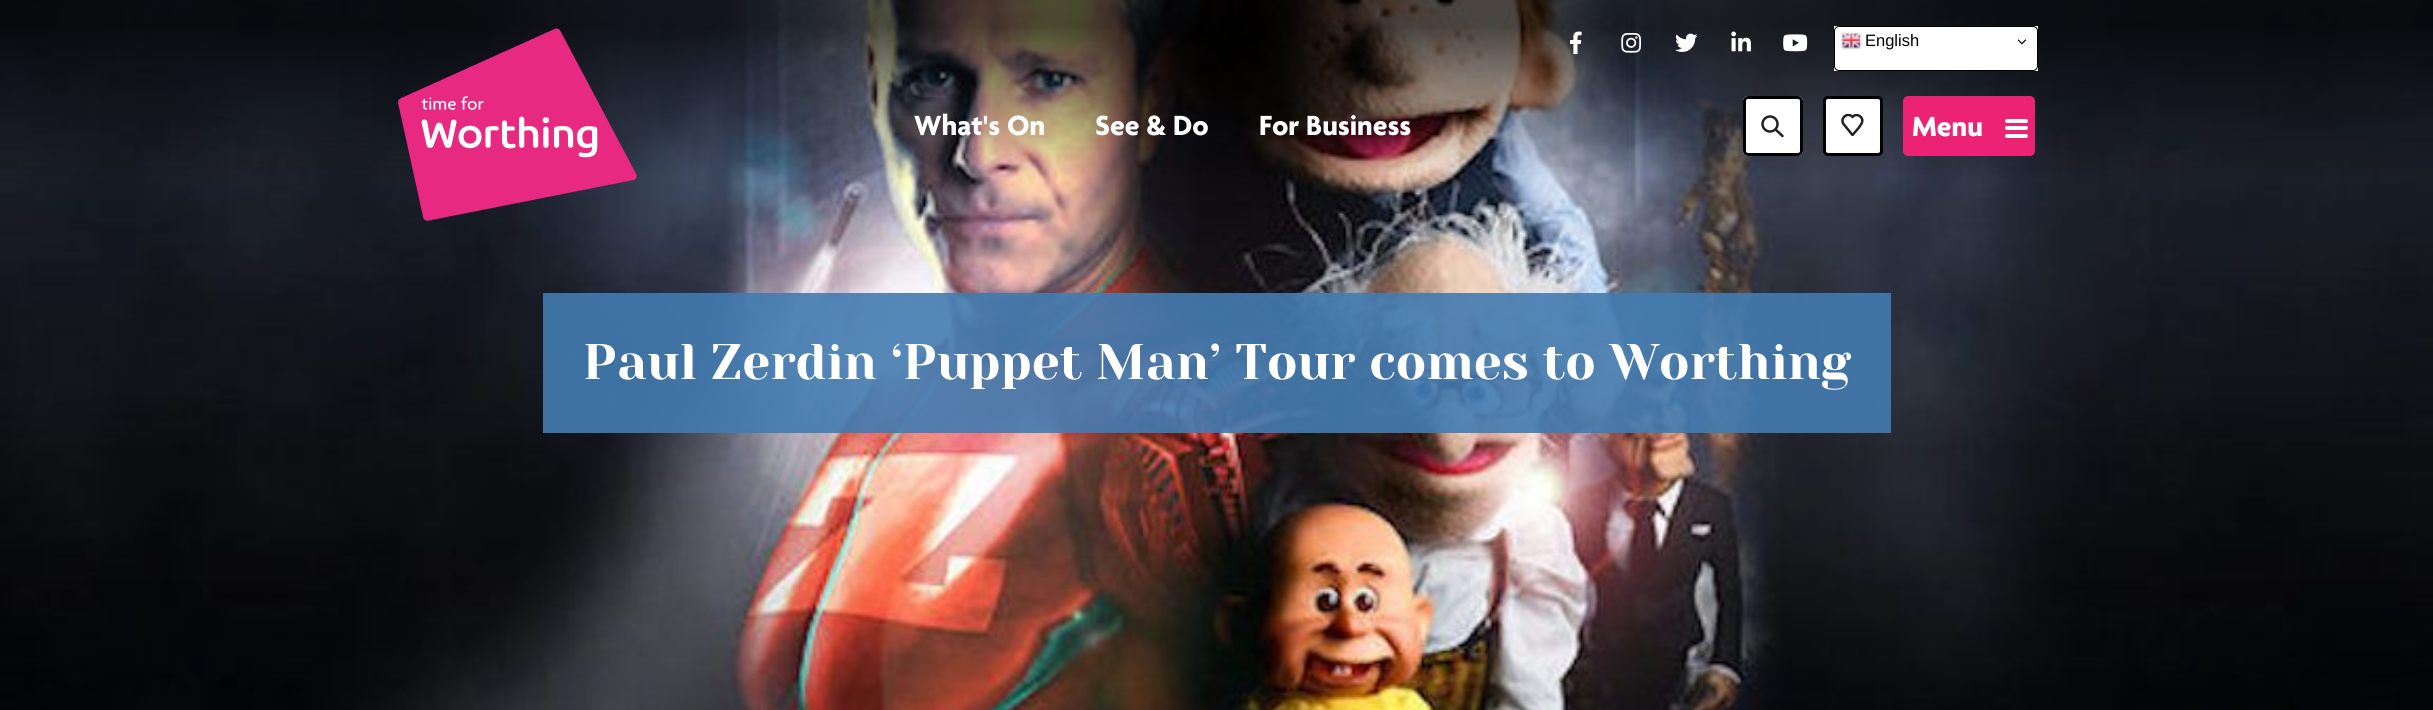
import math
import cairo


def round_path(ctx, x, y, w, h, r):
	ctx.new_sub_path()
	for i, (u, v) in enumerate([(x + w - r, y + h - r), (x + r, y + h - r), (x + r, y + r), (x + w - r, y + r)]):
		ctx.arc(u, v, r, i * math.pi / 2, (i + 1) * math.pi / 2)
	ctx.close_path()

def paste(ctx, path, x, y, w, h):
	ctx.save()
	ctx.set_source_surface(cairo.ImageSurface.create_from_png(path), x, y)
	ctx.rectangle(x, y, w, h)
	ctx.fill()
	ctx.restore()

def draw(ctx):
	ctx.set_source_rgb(1, 1, 1)
	ctx.paint()
	paste(ctx, 'media/9.png', 0, 0, 2433, 710)
	paste(ctx, 'media/1.png', 398, 28, 239, 193)
	paste(ctx, 'media/2.png', 1570, 31, 12, 24)
	paste(ctx, 'media/3.png', 1621, 33, 20, 20)
	paste(ctx, 'media/4.png', 1675, 33, 23, 19)
	paste(ctx, 'media/5.png', 1731, 31, 20, 21)
	paste(ctx, 'media/6.png', 1783, 34, 25, 18)
	ctx.set_source_rgb(1, 1, 1)
	ctx.rectangle(1834, 26, 204, 45)
	ctx.fill()
	round_path(ctx, 1834.5, 26.5, 203, 44, 4.5)
	ctx.set_source_rgb(0, 0, 0)
	ctx.set_line_width(1)
	ctx.stroke()
	paste(ctx, 'media/7.png', 1841, 32, 21, 18)
	ctx.select_font_face('Liberation Sans')
	ctx.set_font_size(16.5)
	ctx.move_to(1865, 46)
	ctx.show_text('English')
	paste(ctx, 'media/8.png', 2018, 39, 8, 6)
	ctx.select_font_face('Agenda', cairo.FONT_SLANT_NORMAL, cairo.FONT_WEIGHT_BOLD)
	ctx.set_font_size(30)
	ctx.set_source_rgb(1, 1, 1)
	for x, y, s in [
		(914, 135, 'What\'s On'),
		(1095, 135, 'See & Do'),
		(1259, 135, 'For Business'),
	]:
		ctx.move_to(x, y)
		ctx.show_text(s)
	round_path(ctx, 1743, 96, 60, 60, 5)
	ctx.fill()
	ctx.new_path()
	ctx.move_to(1775.5, 129.5)
	ctx.line_to(1782.5, 136)
	ctx.set_source_rgb(0.133, 0.133, 0.133)
	ctx.set_line_width(2.5)
	ctx.set_line_cap(cairo.LINE_CAP_ROUND)
	ctx.set_line_join(cairo.LINE_JOIN_ROUND)
	ctx.stroke()
	ctx.arc(1770, 124, 7.5, 0, 2 * math.pi)
	ctx.set_line_cap(cairo.LINE_CAP_BUTT)
	ctx.set_line_join(cairo.LINE_JOIN_MITER)
	ctx.stroke()
	round_path(ctx, 1744.5, 97.5, 57, 57, 3.5)
	ctx.set_source_rgb(0, 0, 0)
	ctx.set_line_width(3)
	ctx.stroke()
	ctx.set_source_rgb(1, 1, 1)
	round_path(ctx, 1824.5, 97.5, 57, 57, 3.5)
	ctx.fill_preserve()
	ctx.set_source_rgb(0, 0, 0)
	ctx.stroke()
	ctx.save()
	ctx.rectangle(1841, 114, 23, 22)
	ctx.clip()
	ctx.new_path()
	ctx.move_to(1843.5, 124)
	ctx.curve_to(1839.5, 118, 1848, 111.5, 1852.5, 117)
	ctx.curve_to(1856, 112.5, 1864, 116.5, 1862, 122.5)
	ctx.curve_to(1861.5, 124, 1860, 126, 1859, 127.5)
	ctx.line_to(1852.5, 135)
	ctx.close_path()
	ctx.set_source_rgb(0.133, 0.133, 0.133)
	ctx.set_line_width(2.5)
	ctx.set_line_cap(cairo.LINE_CAP_ROUND)
	ctx.set_line_join(cairo.LINE_JOIN_ROUND)
	ctx.stroke()
	ctx.restore()
	ctx.set_source_rgb(0.925, 0.133, 0.459)
	round_path(ctx, 1904.5, 97.5, 129, 57, 3.5)
	ctx.fill_preserve()
	ctx.stroke()
	ctx.set_source_rgb(1, 1, 1)
	ctx.move_to(1912, 136)
	ctx.show_text('Menu')
	round_path(ctx, 2005, 119, 23, 4, 2)
	ctx.fill()
	round_path(ctx, 2005, 126, 23, 4, 2)
	ctx.fill()
	round_path(ctx, 2005, 134, 23, 4, 2)
	ctx.fill()
	ctx.set_source_rgba(0.263, 0.486, 0.694, 0.9)
	ctx.rectangle(543, 293, 1348, 140)
	ctx.fill()
	ctx.select_font_face('Yeseva One')
	ctx.set_font_size(50)
	ctx.set_source_rgb(1, 1, 1)
	ctx.move_to(583, 379)
	ctx.show_text('Paul Zerdin ‘Puppet Man’ Tour comes to Worthing')


surface = cairo.ImageSurface(cairo.FORMAT_RGB24, 2433, 710)
ctx = cairo.Context(surface)
options = cairo.FontOptions()
options.set_hint_metrics(cairo.HINT_METRICS_OFF)
options.set_hint_style(cairo.HINT_STYLE_NONE)
ctx.set_font_options(options)
ctx.set_miter_limit(4)
draw(ctx)
surface.write_to_png('image.png')
